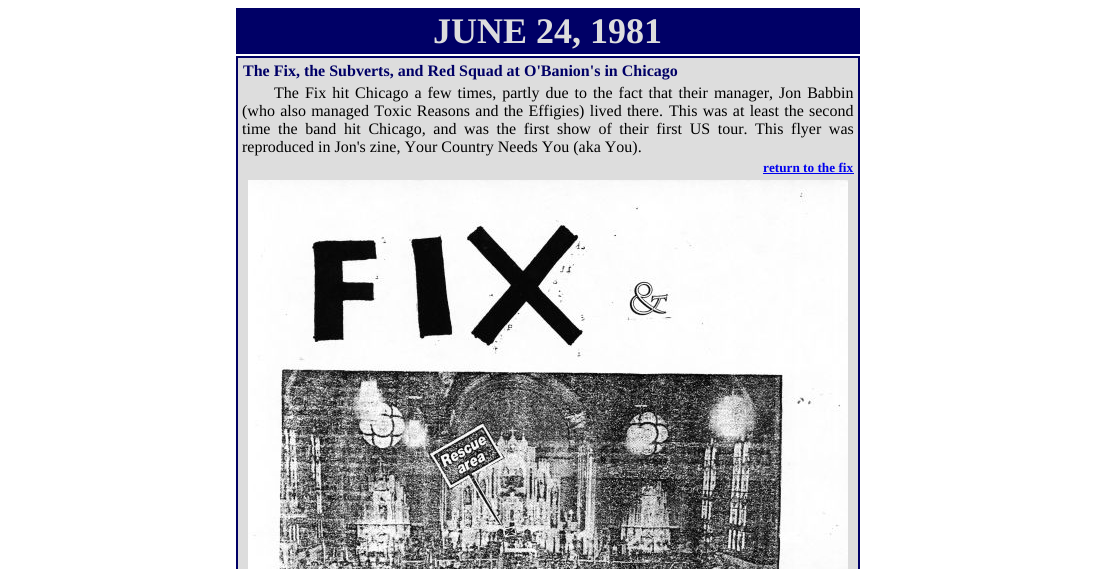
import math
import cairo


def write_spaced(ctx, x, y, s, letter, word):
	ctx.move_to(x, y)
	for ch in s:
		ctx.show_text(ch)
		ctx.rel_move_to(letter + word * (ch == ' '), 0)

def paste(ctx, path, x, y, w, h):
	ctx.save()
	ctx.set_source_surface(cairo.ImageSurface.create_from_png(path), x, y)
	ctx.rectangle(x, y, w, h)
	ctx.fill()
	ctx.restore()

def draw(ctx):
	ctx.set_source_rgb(1, 1, 1)
	ctx.paint()
	ctx.set_source_rgb(0, 0, 0.4)
	ctx.rectangle(236, 8, 624, 46)
	ctx.fill()
	ctx.select_font_face('Liberation Serif', cairo.FONT_SLANT_NORMAL, cairo.FONT_WEIGHT_BOLD)
	ctx.set_font_size(36)
	ctx.set_source_rgb(0.867, 0.867, 0.867)
	ctx.move_to(433, 43)
	ctx.show_text('JUNE 24, 1981')
	ctx.rectangle(237, 57, 622, 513)
	ctx.fill_preserve()
	ctx.set_source_rgb(0, 0, 0.4)
	ctx.stroke()
	ctx.set_font_size(16)
	ctx.move_to(243, 76)
	ctx.show_text('The Fix, the Subverts, and Red Squad at O\'Banion\'s in Chicago')
	ctx.select_font_face('Liberation Serif')
	ctx.set_source_rgb(0, 0, 0)
	write_spaced(ctx, 274, 98, 'The Fix hit Chicago a few times, partly due to the fact that their manager, Jon Babbin', 0, 2)
	write_spaced(ctx, 242, 116, '(who also managed Toxic Reasons and the Effigies) lived there.', 0, 1.25)
	write_spaced(ctx, 669, 116, 'This was at least the second', 0, 1.25)
	write_spaced(ctx, 242, 134, 'time the band hit Chicago, and was the first show of their first US tour.', 0, 3.6)
	write_spaced(ctx, 755, 134, 'This flyer was', 0, 3.6)
	ctx.move_to(242, 152)
	ctx.show_text('reproduced in Jon\'s zine, Your Country Needs You (aka You).')
	ctx.select_font_face('Liberation Serif', cairo.FONT_SLANT_NORMAL, cairo.FONT_WEIGHT_BOLD)
	ctx.set_font_size(13.25)
	ctx.set_source_rgb(0, 0, 0.933)
	ctx.move_to(763, 172)
	ctx.show_text('return to the fix')
	ctx.rectangle(763, 173, 91, 1)
	ctx.fill()
	paste(ctx, 'media/1.png', 248, 180, 600, 389)


surface = cairo.ImageSurface(cairo.FORMAT_RGB24, 1095, 569)
ctx = cairo.Context(surface)
options = cairo.FontOptions()
options.set_hint_metrics(cairo.HINT_METRICS_OFF)
options.set_hint_style(cairo.HINT_STYLE_NONE)
ctx.set_font_options(options)
ctx.set_miter_limit(4)
draw(ctx)
surface.write_to_png('image.png')
